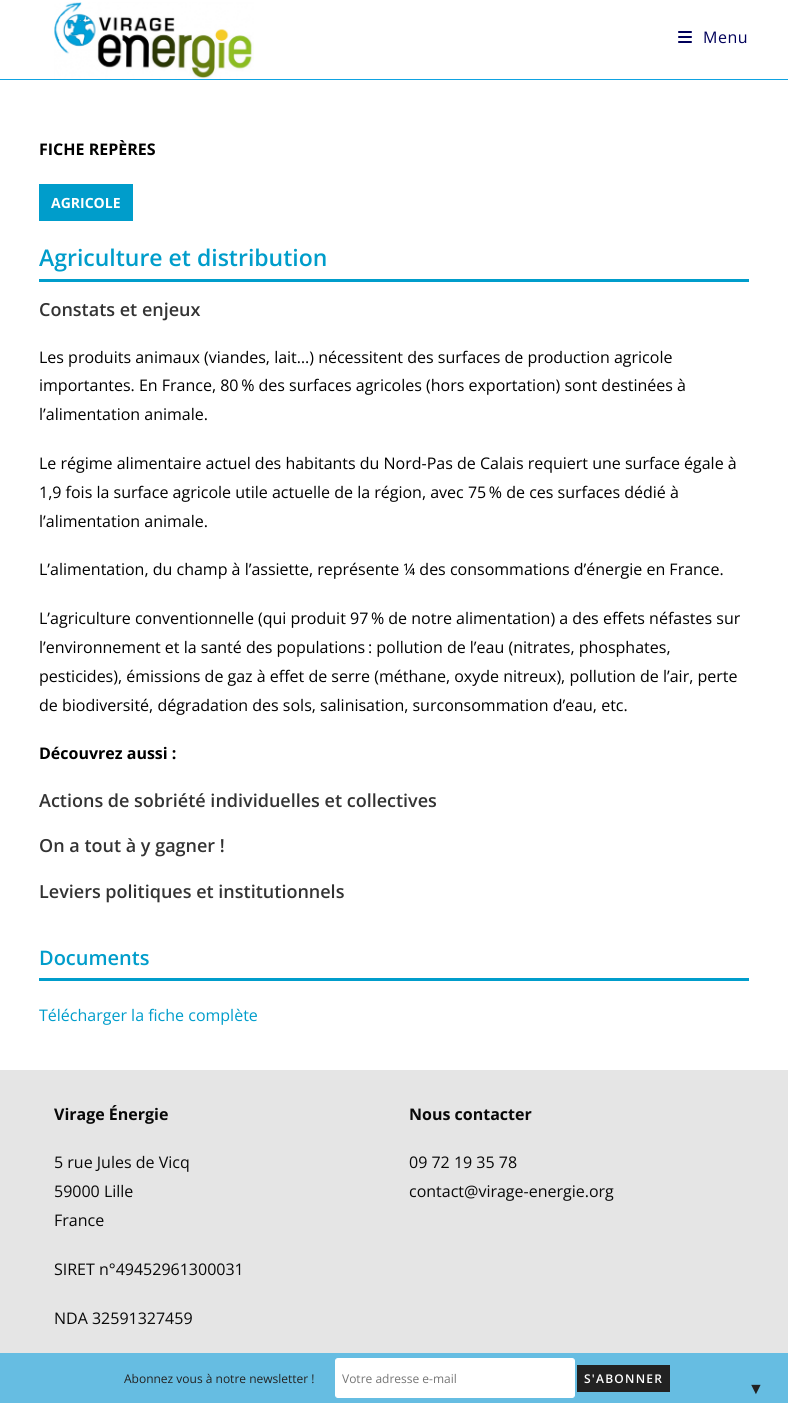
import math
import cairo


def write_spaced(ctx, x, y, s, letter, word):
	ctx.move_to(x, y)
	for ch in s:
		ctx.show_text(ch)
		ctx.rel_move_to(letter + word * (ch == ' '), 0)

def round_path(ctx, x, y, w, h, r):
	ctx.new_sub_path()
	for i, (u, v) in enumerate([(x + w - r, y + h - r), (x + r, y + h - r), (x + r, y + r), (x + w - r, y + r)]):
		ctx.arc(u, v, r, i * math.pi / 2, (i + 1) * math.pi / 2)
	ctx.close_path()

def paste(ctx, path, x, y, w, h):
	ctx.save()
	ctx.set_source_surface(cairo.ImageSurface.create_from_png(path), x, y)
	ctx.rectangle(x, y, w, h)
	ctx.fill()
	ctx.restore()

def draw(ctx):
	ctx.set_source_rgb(1, 1, 1)
	ctx.paint()
	ctx.set_source_rgb(0.059, 0.639, 0.886)
	ctx.rectangle(0, 79, 788, 1)
	ctx.fill()
	paste(ctx, 'media/1.png', 54, 2, 200, 77)
	paste(ctx, 'media/2.png', 678, 31, 14, 12)
	ctx.select_font_face('Open Sans')
	ctx.set_font_size(16)
	ctx.set_source_rgb(0, 0, 0.353)
	write_spaced(ctx, 703, 43, 'Menu', 0.5, 0)
	ctx.select_font_face('Open Sans', cairo.FONT_SLANT_NORMAL, cairo.FONT_WEIGHT_BOLD)
	ctx.set_source_rgb(0, 0, 0)
	ctx.move_to(39, 155)
	ctx.show_text('FICHE REPÈRES')
	ctx.set_source_rgb(0, 0.616, 0.796)
	ctx.rectangle(39, 184, 94, 37)
	ctx.fill()
	ctx.set_font_size(14)
	ctx.set_source_rgb(1, 1, 1)
	ctx.move_to(51, 208)
	ctx.show_text('AGRICOLE')
	ctx.set_source_rgb(0, 0.616, 0.796)
	ctx.rectangle(39, 279, 710, 3)
	ctx.fill()
	ctx.select_font_face('Open Sans SemiBold')
	ctx.set_font_size(23)
	ctx.move_to(39, 266)
	ctx.show_text('Agriculture et distribution')
	ctx.set_font_size(18)
	ctx.set_source_rgb(0.2, 0.2, 0.2)
	ctx.move_to(39, 316)
	ctx.show_text('Constats et enjeux')
	ctx.select_font_face('Open Sans')
	ctx.set_font_size(16)
	ctx.set_source_rgb(0, 0, 0)
	for x, y, s in [
		(39, 363, 'Les produits animaux (viandes, lait…) nécessitent des surfaces de production agricole'),
		(39, 391, 'importantes. En France, 80 % des surfaces agricoles (hors exportation) sont destinées à'),
		(39, 420, 'l’alimentation animale.'),
		(39, 469, 'Le régime alimentaire actuel des habitants du Nord-Pas de Calais requiert une surface égale à'),
		(39, 498, '1,9 fois la surface agricole utile actuelle de la région, avec 75 % de ces surfaces dédié à'),
		(39, 527, 'l’alimentation animale.'),
		(39, 575, 'L’alimentation, du champ à l’assiette, représente ¼ des consommations d’énergie en France.'),
		(39, 624, 'L’agriculture conventionnelle (qui produit 97 % de notre alimentation) a des effets néfastes sur'),
		(39, 653, 'l’environnement et la santé des populations : pollution de l’eau (nitrates, phosphates,'),
		(39, 682, 'pesticides), émissions de gaz à effet de serre (méthane, oxyde nitreux), pollution de l’air, perte'),
		(39, 711, 'de biodiversité, dégradation des sols, salinisation, surconsommation d’eau, etc.'),
	]:
		ctx.move_to(x, y)
		ctx.show_text(s)
	ctx.select_font_face('Open Sans', cairo.FONT_SLANT_NORMAL, cairo.FONT_WEIGHT_BOLD)
	ctx.move_to(39, 759)
	ctx.show_text('Découvrez aussi :')
	ctx.select_font_face('Open Sans SemiBold')
	ctx.set_font_size(18)
	ctx.set_source_rgb(0.2, 0.2, 0.2)
	for x, y, s in [
		(39, 807, 'Actions de sobriété individuelles et collectives'),
		(39, 852, 'On a tout à y gagner !'),
		(39, 898, 'Leviers politiques et institutionnels'),
	]:
		ctx.move_to(x, y)
		ctx.show_text(s)
	ctx.set_source_rgb(0, 0.616, 0.796)
	ctx.rectangle(39, 978, 710, 3)
	ctx.fill()
	ctx.set_font_size(20)
	ctx.move_to(39, 965)
	ctx.show_text('Documents')
	ctx.select_font_face('Open Sans')
	ctx.set_font_size(16)
	ctx.move_to(39, 1021)
	ctx.show_text('Télécharger la fiche complète')
	ctx.set_source_rgb(0.898, 0.898, 0.898)
	ctx.rectangle(0, 1070, 788, 283)
	ctx.fill()
	ctx.select_font_face('Open Sans', cairo.FONT_SLANT_NORMAL, cairo.FONT_WEIGHT_BOLD)
	ctx.set_source_rgb(0.039, 0.039, 0.039)
	ctx.move_to(54, 1120)
	ctx.show_text('Virage Énergie')
	ctx.select_font_face('Open Sans')
	for x, y, s in [
		(54, 1168, '5 rue Jules de Vicq'),
		(54, 1197, '59000 Lille'),
		(54, 1226, 'France'),
		(54, 1275, 'SIRET n°49452961300031'),
		(54, 1324, 'NDA 32591327459'),
	]:
		ctx.move_to(x, y)
		ctx.show_text(s)
	ctx.select_font_face('Open Sans', cairo.FONT_SLANT_NORMAL, cairo.FONT_WEIGHT_BOLD)
	ctx.move_to(409, 1120)
	ctx.show_text('Nous contacter')
	ctx.select_font_face('Open Sans')
	ctx.move_to(409, 1168)
	ctx.show_text('09 72 19 35 78')
	ctx.move_to(409, 1197)
	ctx.show_text('contact@virage-energie.org')
	ctx.set_source_rgb(0.4, 0.741, 0.886)
	ctx.rectangle(0, 1353, 788, 50)
	ctx.fill()
	ctx.set_font_size(12)
	ctx.set_source_rgb(0.133, 0.133, 0.133)
	ctx.move_to(124, 1383)
	ctx.show_text('Abonnez vous à notre newsletter !')
	ctx.set_source_rgb(1, 1, 1)
	round_path(ctx, 335.5, 1358.5, 239, 39, 2.5)
	ctx.fill_preserve()
	ctx.set_line_width(1)
	ctx.stroke()
	ctx.set_source_rgb(0.459, 0.459, 0.459)
	ctx.move_to(342, 1383)
	ctx.show_text('Votre adresse e-mail')
	ctx.set_source_rgb(0.133, 0.133, 0.133)
	ctx.rectangle(577, 1365, 93, 27)
	ctx.fill()
	ctx.select_font_face('Open Sans SemiBold')
	ctx.set_source_rgb(1, 1, 1)
	write_spaced(ctx, 584, 1383, 'S\'ABONNER', 1.25, 0)
	ctx.select_font_face('Liberation Sans')
	ctx.set_font_size(16)
	ctx.set_source_rgb(0.133, 0.133, 0.133)
	ctx.move_to(748, 1394)
	ctx.show_text('▼')


surface = cairo.ImageSurface(cairo.FORMAT_RGB24, 788, 1403)
ctx = cairo.Context(surface)
options = cairo.FontOptions()
options.set_hint_metrics(cairo.HINT_METRICS_OFF)
options.set_hint_style(cairo.HINT_STYLE_NONE)
ctx.set_font_options(options)
ctx.set_miter_limit(4)
draw(ctx)
surface.write_to_png('image.png')
